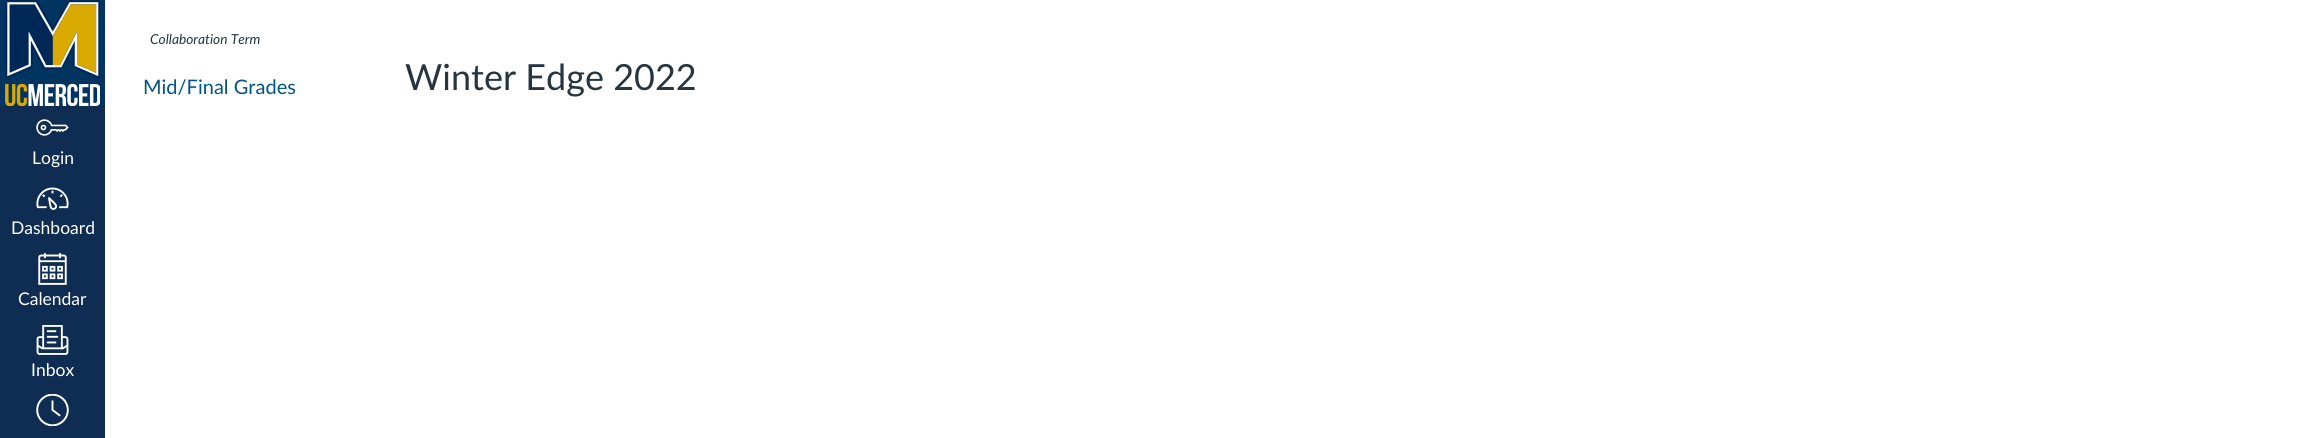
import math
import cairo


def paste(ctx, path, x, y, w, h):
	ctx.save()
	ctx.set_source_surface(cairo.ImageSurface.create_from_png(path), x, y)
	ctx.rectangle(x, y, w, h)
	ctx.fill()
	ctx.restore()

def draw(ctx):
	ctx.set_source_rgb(1, 1, 1)
	ctx.paint()
	ctx.select_font_face('Lato', cairo.FONT_SLANT_ITALIC)
	ctx.set_font_size(13.75)
	ctx.set_source_rgb(0.153, 0.208, 0.251)
	ctx.move_to(150, 44)
	ctx.show_text('Collaboration Term')
	ctx.select_font_face('Lato')
	ctx.set_font_size(20)
	ctx.set_source_rgb(0, 0.329, 0.529)
	ctx.move_to(143, 94)
	ctx.show_text('Mid/Final Grades')
	ctx.set_font_size(36)
	ctx.set_source_rgb(0.153, 0.208, 0.251)
	ctx.move_to(405, 90)
	ctx.show_text('Winter Edge 2022')
	ctx.set_source_rgb(0.059, 0.176, 0.322)
	ctx.rectangle(0, 106, 105, 332)
	ctx.fill()
	ctx.set_source_rgb(0.008, 0.204, 0.38)
	ctx.rectangle(0, 0, 105, 106)
	ctx.fill()
	paste(ctx, 'media/1.png', 5, 0, 95, 106)
	paste(ctx, 'media/2.png', 36, 119, 33, 17)
	ctx.set_font_size(17.5)
	ctx.set_source_rgb(1, 1, 1)
	ctx.move_to(32, 164)
	ctx.show_text('Login')
	paste(ctx, 'media/3.png', 36, 187, 33, 23)
	ctx.move_to(11, 234)
	ctx.show_text('Dashboard')
	paste(ctx, 'media/4.png', 38, 253, 29, 32)
	ctx.move_to(18, 305)
	ctx.show_text('Calendar')
	paste(ctx, 'media/5.png', 36, 325, 33, 30)
	ctx.move_to(31, 376)
	ctx.show_text('Inbox')
	paste(ctx, 'media/6.png', 36, 394, 33, 32)


surface = cairo.ImageSurface(cairo.FORMAT_RGB24, 2306, 438)
ctx = cairo.Context(surface)
options = cairo.FontOptions()
options.set_hint_metrics(cairo.HINT_METRICS_OFF)
options.set_hint_style(cairo.HINT_STYLE_NONE)
ctx.set_font_options(options)
ctx.set_miter_limit(4)
draw(ctx)
surface.write_to_png('image.png')
